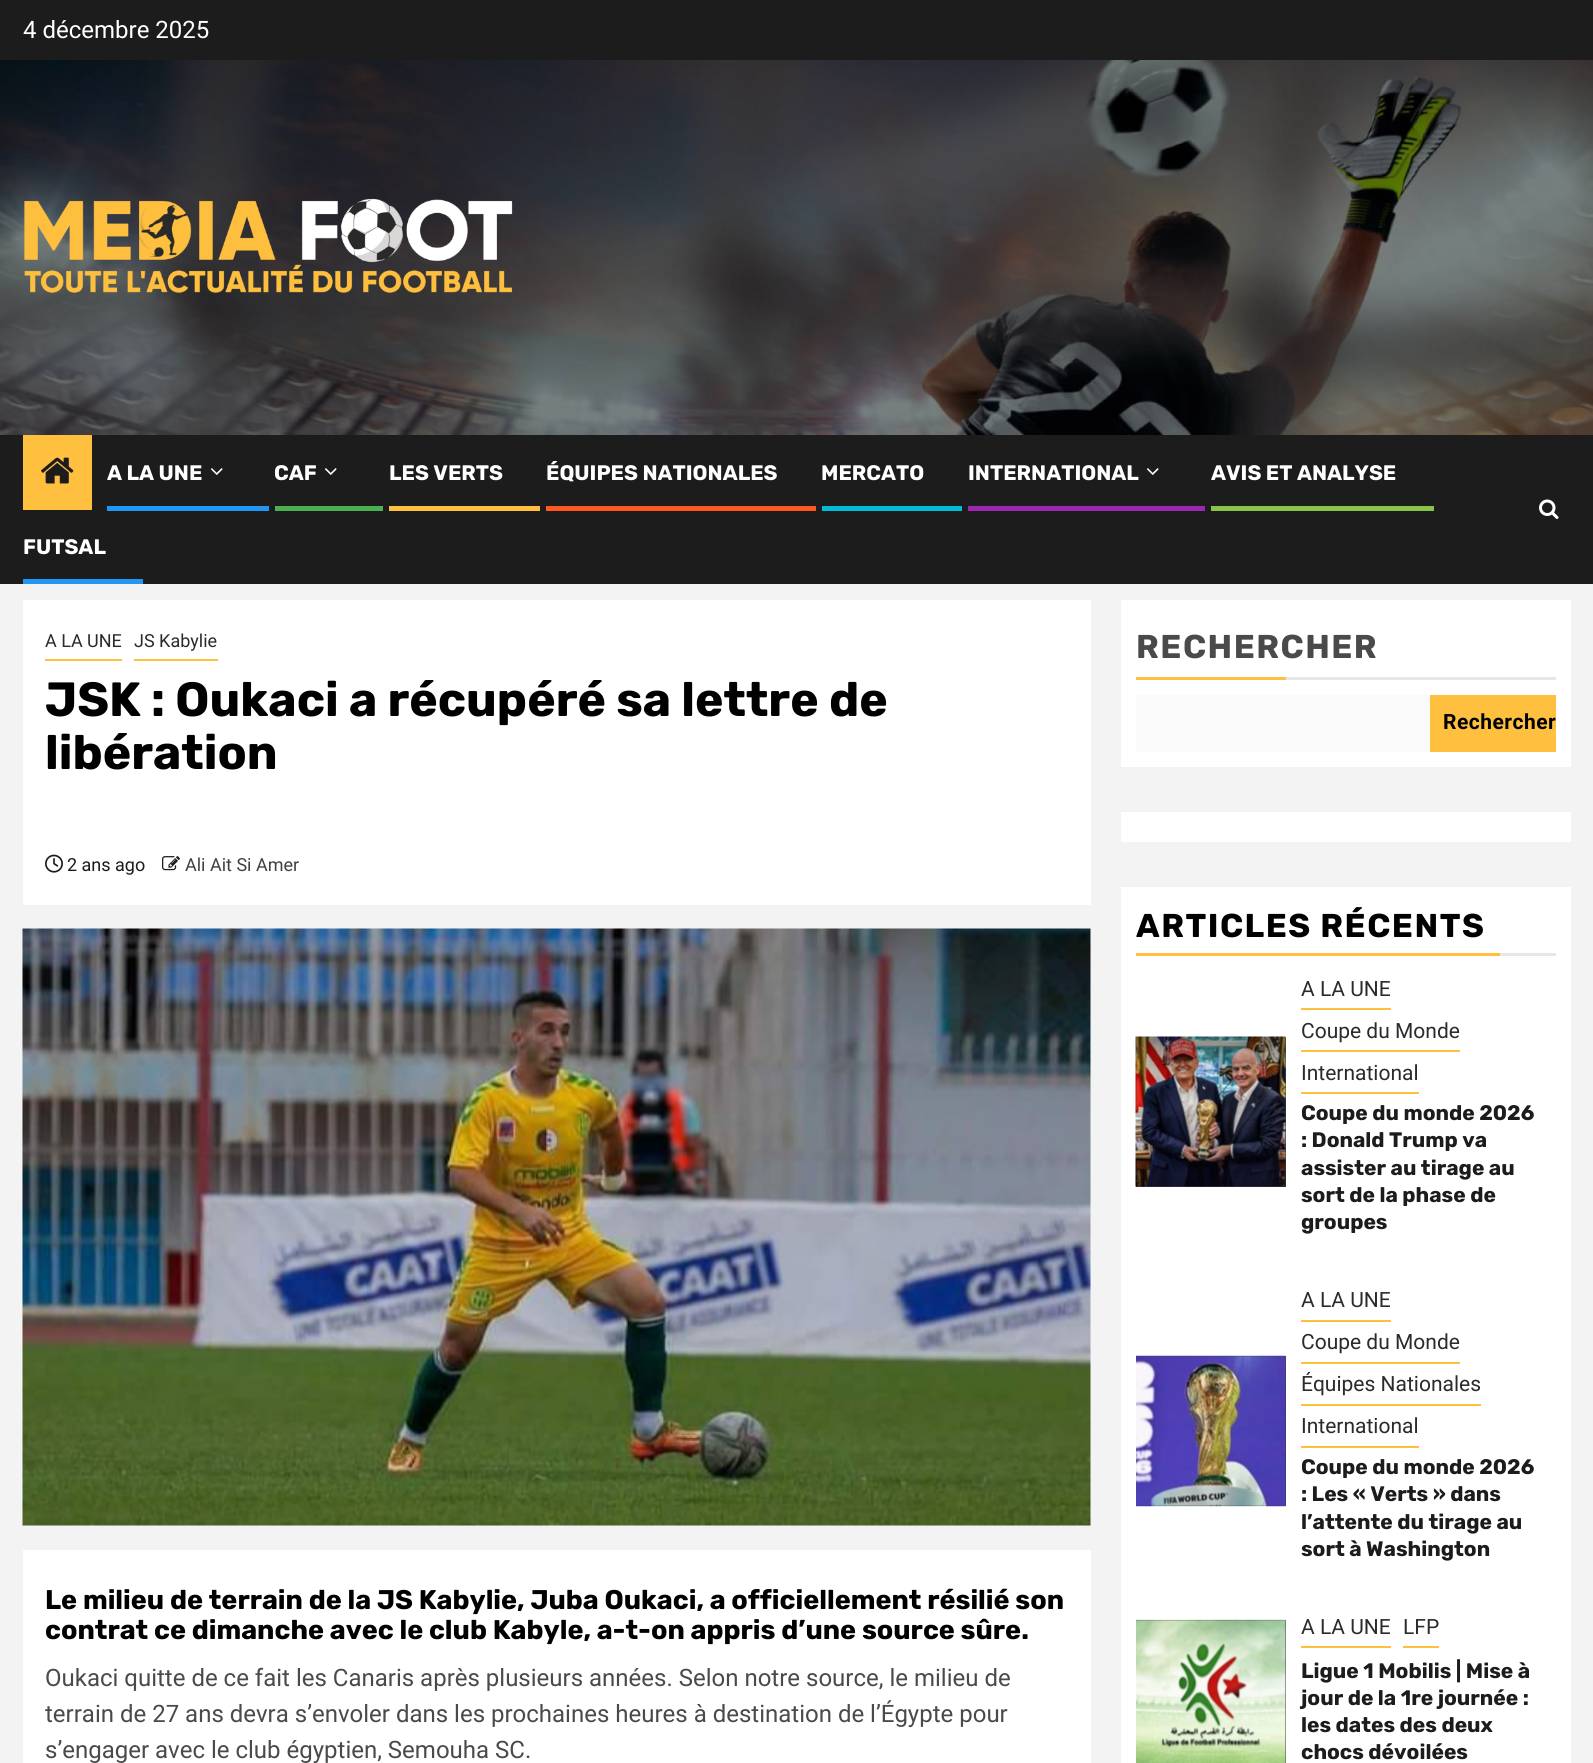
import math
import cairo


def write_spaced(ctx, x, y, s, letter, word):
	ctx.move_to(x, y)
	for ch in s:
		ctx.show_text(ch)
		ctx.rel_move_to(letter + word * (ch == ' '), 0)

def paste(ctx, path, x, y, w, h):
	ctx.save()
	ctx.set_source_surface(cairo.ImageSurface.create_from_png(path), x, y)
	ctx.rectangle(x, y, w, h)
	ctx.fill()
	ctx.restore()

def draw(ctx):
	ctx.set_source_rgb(0.953, 0.953, 0.953)
	ctx.paint()
	ctx.set_source_rgb(0.11, 0.11, 0.11)
	ctx.rectangle(0, 0, 1593, 60)
	ctx.fill()
	ctx.select_font_face('Roboto')
	ctx.set_font_size(24)
	ctx.set_source_rgb(1, 1, 1)
	ctx.move_to(23, 38)
	ctx.show_text('4 décembre 2025')
	paste(ctx, 'media/1.png', 0, 60, 1593, 375)
	paste(ctx, 'media/2.png', 24, 198, 489, 95)
	ctx.set_source_rgb(0.11, 0.11, 0.11)
	ctx.rectangle(0, 435, 1593, 149)
	ctx.fill()
	ctx.set_source_rgb(1, 0.749, 0.247)
	ctx.rectangle(23, 435, 69, 75)
	ctx.fill()
	paste(ctx, 'media/3.png', 41, 457, 33, 27)
	ctx.select_font_face('Rubik', cairo.FONT_SLANT_NORMAL, cairo.FONT_WEIGHT_BOLD)
	ctx.set_font_size(21)
	ctx.set_source_rgb(1, 1, 1)
	ctx.move_to(107, 480)
	ctx.show_text('A LA UNE')
	paste(ctx, 'media/4.png', 210, 468, 13, 7)
	ctx.set_source_rgb(0.129, 0.588, 0.953)
	ctx.rectangle(107, 506, 162, 5)
	ctx.fill()
	ctx.set_source_rgb(1, 1, 1)
	ctx.move_to(274, 480)
	ctx.show_text('CAF')
	paste(ctx, 'media/4.png', 324, 468, 13, 7)
	ctx.set_source_rgb(0.298, 0.686, 0.314)
	ctx.rectangle(275, 506, 108, 5)
	ctx.fill()
	ctx.set_source_rgb(1, 1, 1)
	ctx.move_to(389, 480)
	ctx.show_text('LES VERTS')
	ctx.set_source_rgb(1, 0.749, 0.247)
	ctx.rectangle(389, 506, 151, 5)
	ctx.fill()
	ctx.set_source_rgb(1, 1, 1)
	ctx.move_to(546, 480)
	ctx.show_text('ÉQUIPES NATIONALES')
	ctx.set_source_rgb(1, 0.341, 0.133)
	ctx.rectangle(546, 506, 270, 5)
	ctx.fill()
	ctx.set_source_rgb(1, 1, 1)
	ctx.move_to(821, 480)
	ctx.show_text('MERCATO')
	ctx.set_source_rgb(0, 0.737, 0.831)
	ctx.rectangle(822, 506, 140, 5)
	ctx.fill()
	ctx.set_source_rgb(1, 1, 1)
	ctx.move_to(968, 480)
	ctx.show_text('INTERNATIONAL')
	paste(ctx, 'media/4.png', 1146, 468, 13, 7)
	ctx.set_source_rgb(0.612, 0.153, 0.69)
	ctx.rectangle(968, 506, 237, 5)
	ctx.fill()
	ctx.set_source_rgb(1, 1, 1)
	ctx.move_to(1211, 480)
	ctx.show_text('AVIS ET ANALYSE')
	ctx.set_source_rgb(0.545, 0.765, 0.29)
	ctx.rectangle(1211, 506, 223, 5)
	ctx.fill()
	ctx.set_source_rgb(1, 1, 1)
	ctx.move_to(23, 554)
	ctx.show_text('FUTSAL')
	ctx.set_source_rgb(0.129, 0.588, 0.953)
	ctx.rectangle(23, 579, 120, 5)
	ctx.fill()
	paste(ctx, 'media/5.png', 1539, 499, 20, 20)
	ctx.set_source_rgb(1, 1, 1)
	ctx.rectangle(23, 600, 1068, 305)
	ctx.fill()
	ctx.set_source_rgb(1, 0.749, 0.247)
	ctx.rectangle(45, 659, 77, 2)
	ctx.fill()
	ctx.select_font_face('Roboto')
	ctx.set_font_size(18)
	ctx.set_source_rgb(0.169, 0.169, 0.169)
	ctx.move_to(45, 647)
	ctx.show_text('A LA UNE')
	ctx.set_source_rgb(1, 0.749, 0.247)
	ctx.rectangle(134, 659, 84, 2)
	ctx.fill()
	ctx.set_source_rgb(0.169, 0.169, 0.169)
	ctx.move_to(134, 647)
	ctx.show_text('JS Kabylie')
	ctx.select_font_face('Rubik', cairo.FONT_SLANT_NORMAL, cairo.FONT_WEIGHT_BOLD)
	ctx.set_font_size(48)
	ctx.set_source_rgb(0, 0, 0)
	ctx.move_to(45, 716)
	ctx.show_text('JSK : Oukaci a récupéré sa lettre de')
	ctx.move_to(45, 769)
	ctx.show_text('libération')
	paste(ctx, 'media/6.png', 45, 854, 18, 19)
	ctx.select_font_face('Roboto')
	ctx.set_font_size(18)
	ctx.set_source_rgb(0.11, 0.11, 0.11)
	ctx.move_to(67, 871)
	ctx.show_text('2 ans ago')
	paste(ctx, 'media/7.png', 162, 856, 18, 15)
	ctx.set_source_rgb(0.251, 0.251, 0.251)
	ctx.move_to(185, 871)
	ctx.show_text('Ali Ait Si Amer')
	paste(ctx, 'media/8.png', 22, 928, 1069, 598)
	ctx.set_source_rgb(1, 1, 1)
	ctx.rectangle(23, 1550, 1068, 213)
	ctx.fill()
	ctx.select_font_face('Rubik', cairo.FONT_SLANT_NORMAL, cairo.FONT_WEIGHT_BOLD)
	ctx.set_font_size(27)
	ctx.set_source_rgb(0, 0, 0)
	ctx.move_to(45, 1609)
	ctx.show_text('Le milieu de terrain de la JS Kabylie, Juba Oukaci, a officiellement résilié son')
	ctx.move_to(45, 1639)
	ctx.show_text('contrat ce dimanche avec le club Kabyle, a-t-on appris d’une source sûre.')
	ctx.select_font_face('Roboto')
	ctx.set_font_size(24)
	ctx.set_source_rgb(0.29, 0.29, 0.29)
	for x, y, s in [
		(45, 1686, 'Oukaci quitte de ce fait les Canaris après plusieurs années. Selon notre source, le milieu de'),
		(45, 1722, 'terrain de 27 ans devra s’envoler dans les prochaines heures à destination de l’Égypte pour'),
		(45, 1758, 's’engager avec le club égyptien, Semouha SC.'),
	]:
		ctx.move_to(x, y)
		ctx.show_text(s)
	ctx.set_source_rgb(1, 1, 1)
	ctx.rectangle(1121, 600, 450, 167)
	ctx.fill()
	ctx.select_font_face('Rubik', cairo.FONT_SLANT_NORMAL, cairo.FONT_WEIGHT_BOLD)
	ctx.set_font_size(33)
	ctx.set_source_rgb(0.29, 0.29, 0.29)
	write_spaced(ctx, 1136, 658, 'RECHERCHER', 1.5, 0)
	ctx.set_source_rgb(1, 0.749, 0.247)
	ctx.rectangle(1136, 677, 150, 3)
	ctx.fill()
	ctx.set_source_rgb(0.906, 0.906, 0.906)
	ctx.rectangle(1286, 677, 270, 3)
	ctx.fill()
	ctx.set_source_rgb(0.98, 0.98, 0.98)
	ctx.rectangle(1136, 695, 294, 57)
	ctx.fill()
	ctx.set_source_rgb(1, 0.749, 0.247)
	ctx.rectangle(1430, 695, 126, 57)
	ctx.fill()
	ctx.select_font_face('Roboto', cairo.FONT_SLANT_NORMAL, cairo.FONT_WEIGHT_BOLD)
	ctx.set_font_size(21)
	ctx.set_source_rgb(0, 0, 0)
	write_spaced(ctx, 1443, 729, 'Rechercher', 0.5, 0)
	ctx.set_source_rgb(1, 1, 1)
	ctx.rectangle(1121, 812, 450, 30)
	ctx.rectangle(1121, 887, 450, 876)
	ctx.fill()
	ctx.set_source_rgb(1, 0.749, 0.247)
	ctx.rectangle(1136, 953, 364, 3)
	ctx.fill()
	ctx.select_font_face('Rubik', cairo.FONT_SLANT_NORMAL, cairo.FONT_WEIGHT_BOLD)
	ctx.set_font_size(33)
	ctx.set_source_rgb(0, 0, 0)
	write_spaced(ctx, 1136, 937, 'ARTICLES RÉCENTS', 1.5, 0)
	ctx.set_source_rgb(0.906, 0.906, 0.906)
	ctx.rectangle(1500, 953, 56, 3)
	ctx.fill()
	ctx.set_source_rgb(0.251, 0.251, 0.251)
	ctx.rectangle(1136, 1037, 150, 150)
	ctx.fill()
	paste(ctx, 'media/9.png', 1135, 1036, 151, 151)
	ctx.set_source_rgb(1, 0.749, 0.247)
	ctx.rectangle(1301, 1008, 90, 2)
	ctx.fill()
	ctx.select_font_face('Roboto')
	ctx.set_font_size(21)
	ctx.set_source_rgb(0.169, 0.169, 0.169)
	ctx.move_to(1301, 996)
	ctx.show_text('A LA UNE')
	ctx.set_source_rgb(1, 0.749, 0.247)
	ctx.rectangle(1301, 1050, 159, 2)
	ctx.fill()
	ctx.set_source_rgb(0.169, 0.169, 0.169)
	ctx.move_to(1301, 1038)
	ctx.show_text('Coupe du Monde')
	ctx.set_source_rgb(1, 0.749, 0.247)
	ctx.rectangle(1301, 1092, 118, 2)
	ctx.fill()
	ctx.set_source_rgb(0.169, 0.169, 0.169)
	ctx.move_to(1301, 1080)
	ctx.show_text('International')
	ctx.select_font_face('Rubik', cairo.FONT_SLANT_NORMAL, cairo.FONT_WEIGHT_BOLD)
	ctx.set_source_rgb(0.11, 0.11, 0.11)
	for x, y, s in [
		(1301, 1120, 'Coupe du monde 2026'),
		(1301, 1147, ': Donald Trump va'),
		(1301, 1175, 'assister au tirage au'),
		(1301, 1202, 'sort de la phase de'),
		(1301, 1229, 'groupes'),
	]:
		ctx.move_to(x, y)
		ctx.show_text(s)
	ctx.set_source_rgb(0.251, 0.251, 0.251)
	ctx.rectangle(1136, 1356, 150, 150)
	ctx.fill()
	paste(ctx, 'media/10.png', 1136, 1355, 150, 152)
	ctx.set_source_rgb(1, 0.749, 0.247)
	ctx.rectangle(1301, 1320, 90, 2)
	ctx.fill()
	ctx.select_font_face('Roboto')
	ctx.set_source_rgb(0.169, 0.169, 0.169)
	ctx.move_to(1301, 1307)
	ctx.show_text('A LA UNE')
	ctx.set_source_rgb(1, 0.749, 0.247)
	ctx.rectangle(1301, 1362, 159, 2)
	ctx.fill()
	ctx.set_source_rgb(0.169, 0.169, 0.169)
	ctx.move_to(1301, 1349)
	ctx.show_text('Coupe du Monde')
	ctx.set_source_rgb(1, 0.749, 0.247)
	ctx.rectangle(1301, 1404, 180, 2)
	ctx.fill()
	ctx.set_source_rgb(0.169, 0.169, 0.169)
	ctx.move_to(1301, 1391)
	ctx.show_text('Équipes Nationales')
	ctx.set_source_rgb(1, 0.749, 0.247)
	ctx.rectangle(1301, 1446, 118, 2)
	ctx.fill()
	ctx.set_source_rgb(0.169, 0.169, 0.169)
	ctx.move_to(1301, 1433)
	ctx.show_text('International')
	ctx.select_font_face('Rubik', cairo.FONT_SLANT_NORMAL, cairo.FONT_WEIGHT_BOLD)
	ctx.set_source_rgb(0.11, 0.11, 0.11)
	for x, y, s in [
		(1301, 1474, 'Coupe du monde 2026'),
		(1301, 1501, ': Les « Verts » dans'),
		(1301, 1529, 'l’attente du tirage au'),
		(1301, 1556, 'sort à Washington'),
	]:
		ctx.move_to(x, y)
		ctx.show_text(s)
	ctx.set_source_rgb(0.251, 0.251, 0.251)
	ctx.rectangle(1136, 1620, 150, 143)
	ctx.fill()
	paste(ctx, 'media/11.png', 1136, 1619, 150, 144)
	ctx.set_source_rgb(1, 0.749, 0.247)
	ctx.rectangle(1301, 1646, 90, 2)
	ctx.fill()
	ctx.select_font_face('Roboto')
	ctx.set_source_rgb(0.169, 0.169, 0.169)
	ctx.move_to(1301, 1634)
	ctx.show_text('A LA UNE')
	ctx.set_source_rgb(1, 0.749, 0.247)
	ctx.rectangle(1403, 1646, 36, 2)
	ctx.fill()
	ctx.set_source_rgb(0.169, 0.169, 0.169)
	ctx.move_to(1403, 1634)
	ctx.show_text('LFP')
	ctx.select_font_face('Rubik', cairo.FONT_SLANT_NORMAL, cairo.FONT_WEIGHT_BOLD)
	ctx.set_source_rgb(0.11, 0.11, 0.11)
	for x, y, s in [
		(1301, 1678, 'Ligue 1 Mobilis | Mise à'),
		(1301, 1705, 'jour de la 1re journée :'),
		(1301, 1732, 'les dates des deux'),
		(1301, 1759, 'chocs dévoilées'),
	]:
		ctx.move_to(x, y)
		ctx.show_text(s)


surface = cairo.ImageSurface(cairo.FORMAT_RGB24, 1593, 1763)
ctx = cairo.Context(surface)
options = cairo.FontOptions()
options.set_hint_metrics(cairo.HINT_METRICS_OFF)
options.set_hint_style(cairo.HINT_STYLE_NONE)
ctx.set_font_options(options)
ctx.set_miter_limit(4)
draw(ctx)
surface.write_to_png('image.png')
